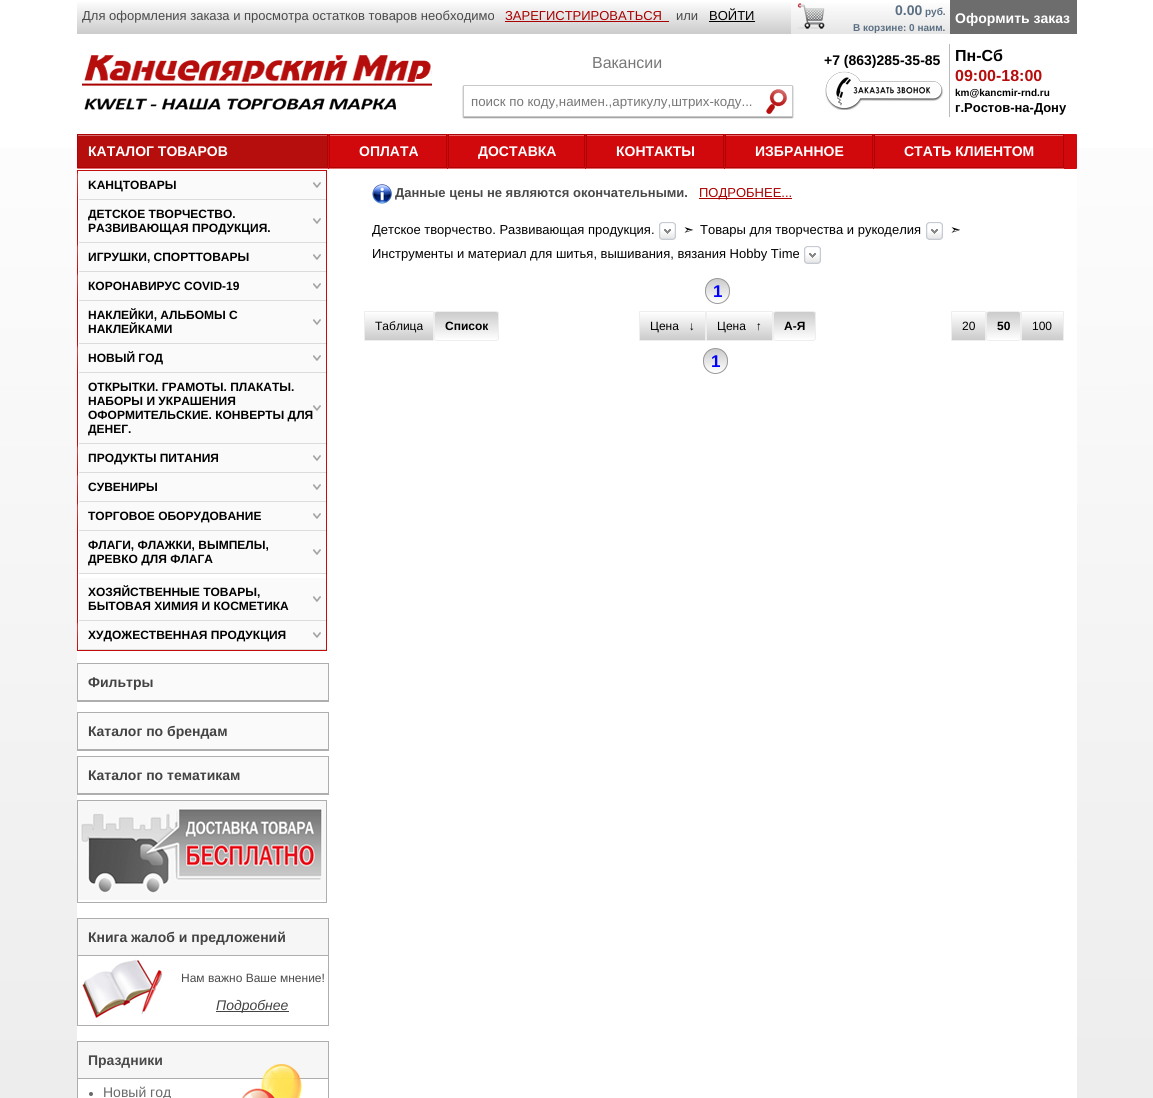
import math
import cairo


def round_path(ctx, x, y, w, h, r):
	ctx.new_sub_path()
	for i, (u, v) in enumerate([(x + w - r, y + h - r), (x + r, y + h - r), (x + r, y + r), (x + w - r, y + r)]):
		ctx.arc(u, v, r, i * math.pi / 2, (i + 1) * math.pi / 2)
	ctx.close_path()

def blur_box(ctx, x, y, w, h, r, blur, alpha):
	ctx.push_group_with_content(cairo.CONTENT_ALPHA)
	ctx.set_operator(cairo.OPERATOR_SOURCE)
	for i in range(15, -16, -2):
		e = blur * i / 6
		if min(w, h) + 2 * e > 0:
			ctx.set_source_rgba(0, 0, 0, alpha * math.erfc((i - 1) / 8.5) / 2)
			round_path(ctx, x - e, y - e, w + 2 * e, h + 2 * e, max(0, min(r + e + blur * .6, min(w, h) / 2 + e)))
			ctx.fill()
	ctx.mask(ctx.pop_group())

def paste(ctx, path, x, y, w, h):
	ctx.save()
	ctx.set_source_surface(cairo.ImageSurface.create_from_png(path), x, y)
	ctx.rectangle(x, y, w, h)
	ctx.fill()
	ctx.restore()

def draw(ctx):
	ctx.set_source_rgb(1, 1, 1)
	ctx.paint()
	gradient = cairo.LinearGradient(576, 0, 577, 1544)
	gradient.add_color_stop_rgba(0, 1, 1, 1, 1)
	gradient.add_color_stop_rgba(1, 0.898, 0.898, 0.898, 1)
	ctx.set_source(gradient)
	ctx.rectangle(0, 148, 1153, 950)
	ctx.fill()
	ctx.set_source_rgb(1, 1, 1)
	ctx.rectangle(77, 148, 1000, 950)
	ctx.fill()
	gradient = cairo.LinearGradient(577, 34, 577, 0)
	gradient.add_color_stop_rgba(0, 0.796, 0.796, 0.796, 1)
	gradient.add_color_stop_rgba(1, 1, 1, 1, 1)
	ctx.set_source(gradient)
	ctx.rectangle(77, 2, 714, 32)
	ctx.fill()
	ctx.select_font_face('Liberation Sans')
	ctx.set_font_size(13)
	ctx.set_source_rgb(0.29, 0.29, 0.29)
	ctx.move_to(82, 20)
	ctx.show_text('Для оформления заказа и просмотра остатков товаров необходимо')
	ctx.set_source_rgb(0.663, 0, 0)
	ctx.move_to(505, 20)
	ctx.show_text('ЗАРЕГИСТРИРОВАТЬСЯ')
	ctx.rectangle(505, 21, 164, 1)
	ctx.fill()
	ctx.set_source_rgb(0.29, 0.29, 0.29)
	ctx.move_to(676, 20)
	ctx.show_text('или')
	ctx.set_source_rgb(0, 0, 0)
	ctx.move_to(709, 20)
	ctx.show_text('ВОЙТИ')
	ctx.rectangle(709, 21, 46, 1)
	ctx.fill()
	gradient = cairo.LinearGradient(811, 34, 811, 0)
	gradient.add_color_stop_rgba(0, 0.898, 0.898, 0.898, 1)
	gradient.add_color_stop_rgba(1, 1, 1, 1, 1)
	ctx.set_source(gradient)
	ctx.rectangle(791, 3, 40, 31)
	ctx.fill()
	paste(ctx, 'media/1.png', 797, 3, 28, 26)
	gradient = cairo.LinearGradient(891, 34, 891, 0)
	gradient.add_color_stop_rgba(0, 0.898, 0.898, 0.898, 1)
	gradient.add_color_stop_rgba(1, 1, 1, 1, 1)
	ctx.set_source(gradient)
	ctx.rectangle(831, 3, 119, 31)
	ctx.fill()
	ctx.select_font_face('Liberation Sans', cairo.FONT_SLANT_NORMAL, cairo.FONT_WEIGHT_BOLD)
	ctx.set_font_size(14)
	ctx.set_source_rgb(0.357, 0.435, 0.514)
	ctx.move_to(895, 15)
	ctx.show_text('0.00')
	ctx.set_font_size(10)
	ctx.move_to(925, 15)
	ctx.show_text('руб.')
	ctx.move_to(853, 31)
	ctx.show_text('В корзине: 0 наим.')
	ctx.set_source_rgb(0.427, 0.427, 0.427)
	ctx.rectangle(950, 0, 127, 34)
	ctx.fill()
	ctx.set_font_size(14)
	ctx.set_source_rgb(1, 1, 1)
	ctx.move_to(955, 23)
	ctx.show_text('Оформить заказ')
	paste(ctx, 'media/2.png', 82, 55, 350, 55)
	ctx.select_font_face('Liberation Sans')
	ctx.set_font_size(16)
	ctx.set_source_rgb(0.467, 0.467, 0.467)
	ctx.move_to(592, 68)
	ctx.show_text('Вакансии')
	ctx.set_source_rgb(0.6, 0.6, 0.6)
	blur_box(ctx, 463, 86, 330, 32, 1, 0.5, 1)
	ctx.set_source_rgb(1, 1, 1)
	round_path(ctx, 463.5, 85.5, 329, 31, 0.5)
	ctx.fill_preserve()
	ctx.set_source_rgb(0.784, 0.784, 0.784)
	ctx.set_line_width(1)
	ctx.stroke()
	ctx.set_font_size(13.3)
	ctx.set_source_rgb(0.467, 0.467, 0.467)
	ctx.move_to(471, 106)
	ctx.show_text('поиск по коду,наимен.,артикулу,штрих-коду...')
	paste(ctx, 'media/3.png', 766, 89, 21, 25)
	ctx.select_font_face('Liberation Sans', cairo.FONT_SLANT_NORMAL, cairo.FONT_WEIGHT_BOLD)
	ctx.set_font_size(14)
	ctx.set_source_rgb(0, 0, 0)
	ctx.move_to(824, 65)
	ctx.show_text('+7 (863)285-35-85')
	paste(ctx, 'media/4.png', 825, 71, 119, 39)
	ctx.set_source_rgb(0.733, 0.733, 0.733)
	ctx.rectangle(949, 44, 1, 73)
	ctx.fill()
	ctx.set_font_size(16)
	ctx.set_source_rgb(0, 0, 0)
	ctx.move_to(955, 61)
	ctx.show_text('Пн-Сб')
	ctx.set_source_rgb(0.714, 0.051, 0.051)
	ctx.move_to(955, 81)
	ctx.show_text('09:00-18:00')
	ctx.set_font_size(10)
	ctx.set_source_rgb(0, 0, 0)
	ctx.move_to(955, 96)
	ctx.show_text('km@kancmir-rnd.ru')
	ctx.set_font_size(13)
	ctx.move_to(955, 112)
	ctx.show_text('г.Ростов-на-Дону')
	ctx.set_source_rgb(0.82, 0.035, 0.047)
	round_path(ctx, 77, 134, 1000, 35, 1)
	ctx.fill()
	ctx.set_source_rgba(1, 1, 1, 0.4)
	ctx.new_path()
	ctx.move_to(77, 167)
	ctx.line_to(77, 169)
	ctx.line_to(78, 169)
	ctx.line_to(328, 169)
	ctx.line_to(328, 168)
	ctx.line_to(78, 168)
	ctx.close_path()
	ctx.fill()
	ctx.set_source_rgb(0.714, 0.051, 0.051)
	ctx.new_path()
	ctx.move_to(78, 134)
	ctx.line_to(328, 134)
	ctx.line_to(328, 168)
	ctx.line_to(78, 168)
	ctx.curve_to(77.5, 168, 77, 167.5, 77, 167)
	ctx.line_to(77, 135)
	ctx.curve_to(77, 134.5, 77.5, 134, 78, 134)
	ctx.close_path()
	ctx.fill()
	ctx.set_source_rgb(0.827, 0.431, 0.431)
	ctx.rectangle(78, 135, 249, 1)
	ctx.fill()
	ctx.new_path()
	ctx.move_to(78, 134.5)
	ctx.line_to(327.5, 134.5)
	ctx.line_to(327.5, 167.5)
	ctx.line_to(78, 167.5)
	ctx.curve_to(77.5, 167.5, 77.5, 167.5, 77.5, 167)
	ctx.line_to(77.5, 135)
	ctx.curve_to(77.5, 134.5, 77.5, 134.5, 78, 134.5)
	ctx.close_path()
	ctx.set_source_rgb(0.69, 0.012, 0.027)
	ctx.stroke()
	ctx.set_font_size(14)
	ctx.set_source_rgb(1, 1, 1)
	ctx.move_to(88, 156)
	ctx.show_text('КАТАЛОГ ТОВАРОВ')
	ctx.set_source_rgb(0.89, 0.42, 0.427)
	ctx.rectangle(330, 135, 116, 1)
	ctx.fill()
	ctx.rectangle(329.5, 134.5, 117, 33)
	ctx.set_source_rgb(0.69, 0.012, 0.027)
	ctx.stroke()
	ctx.set_source_rgb(1, 1, 1)
	ctx.move_to(359, 156)
	ctx.show_text('ОПЛАТА')
	ctx.set_source_rgb(0.89, 0.42, 0.427)
	ctx.rectangle(329, 168, 118, 1)
	ctx.fill()
	ctx.rectangle(449, 135, 135, 1)
	ctx.fill()
	ctx.rectangle(448.5, 134.5, 136, 33)
	ctx.set_source_rgb(0.69, 0.012, 0.027)
	ctx.stroke()
	ctx.set_source_rgb(1, 1, 1)
	ctx.move_to(478, 156)
	ctx.show_text('ДОСТАВКА')
	ctx.set_source_rgb(0.89, 0.42, 0.427)
	ctx.rectangle(448, 168, 137, 1)
	ctx.fill()
	ctx.rectangle(587, 135, 136, 1)
	ctx.fill()
	ctx.rectangle(586.5, 134.5, 137, 33)
	ctx.set_source_rgb(0.69, 0.012, 0.027)
	ctx.stroke()
	ctx.set_source_rgb(1, 1, 1)
	ctx.move_to(616, 156)
	ctx.show_text('КОНТАКТЫ')
	ctx.set_source_rgb(0.89, 0.42, 0.427)
	ctx.rectangle(586, 168, 138, 1)
	ctx.fill()
	ctx.rectangle(726, 135, 146, 1)
	ctx.fill()
	ctx.rectangle(725.5, 134.5, 147, 33)
	ctx.set_source_rgb(0.69, 0.012, 0.027)
	ctx.stroke()
	ctx.set_source_rgb(1, 1, 1)
	ctx.move_to(755, 156)
	ctx.show_text('ИЗБРАННОЕ')
	ctx.set_source_rgb(0.89, 0.42, 0.427)
	ctx.rectangle(725, 168, 148, 1)
	ctx.fill()
	ctx.rectangle(875, 135, 188, 1)
	ctx.fill()
	ctx.rectangle(874.5, 134.5, 189, 33)
	ctx.set_source_rgb(0.69, 0.012, 0.027)
	ctx.stroke()
	ctx.set_source_rgb(1, 1, 1)
	ctx.move_to(904, 156)
	ctx.show_text('СТАТЬ КЛИЕНТОМ')
	ctx.set_source_rgb(0.89, 0.42, 0.427)
	ctx.rectangle(874, 168, 190, 1)
	ctx.fill()
	ctx.rectangle(77.5, 170.5, 249, 480)
	ctx.set_source_rgb(0.773, 0.047, 0.047)
	ctx.stroke()
	ctx.set_source_rgb(0.98, 0.98, 0.98)
	ctx.new_path()
	ctx.move_to(79, 171)
	ctx.line_to(325, 171)
	ctx.curve_to(326, 171, 326, 171, 326, 172)
	ctx.line_to(326, 199)
	ctx.line_to(78, 199)
	ctx.curve_to(78, 177, 77, 171, 79, 171)
	ctx.close_path()
	ctx.fill()
	paste(ctx, 'media/5.png', 313, 182, 8, 6)
	ctx.set_source_rgb(0.863, 0.863, 0.855)
	ctx.rectangle(79, 199, 247, 1)
	ctx.fill()
	ctx.set_font_size(12)
	ctx.set_source_rgb(0, 0, 0)
	ctx.move_to(88, 189)
	ctx.show_text('KАНЦТОВАРЫ')
	ctx.set_source_rgb(0.98, 0.98, 0.98)
	ctx.new_path()
	ctx.move_to(79, 200)
	ctx.line_to(325, 200)
	ctx.curve_to(326, 200, 326, 200, 326, 201)
	ctx.line_to(326, 242)
	ctx.line_to(78, 242)
	ctx.line_to(78, 201)
	ctx.close_path()
	ctx.fill()
	paste(ctx, 'media/5.png', 313, 218, 8, 6)
	ctx.set_source_rgb(0.863, 0.863, 0.855)
	ctx.rectangle(79, 242, 247, 1)
	ctx.fill()
	ctx.set_source_rgb(0, 0, 0)
	ctx.move_to(88, 218)
	ctx.show_text('ДЕТСКОЕ ТВОРЧЕСТВО.')
	ctx.move_to(88, 232)
	ctx.show_text('РАЗВИВАЮЩАЯ ПРОДУКЦИЯ.')
	ctx.set_source_rgb(0.98, 0.98, 0.98)
	ctx.new_path()
	ctx.move_to(79, 243)
	ctx.line_to(325, 243)
	ctx.curve_to(326, 243, 326, 243, 326, 244)
	ctx.line_to(326, 271)
	ctx.line_to(78, 271)
	ctx.curve_to(78, 249, 77, 243, 79, 243)
	ctx.close_path()
	ctx.fill()
	paste(ctx, 'media/5.png', 313, 254, 8, 6)
	ctx.set_source_rgb(0.863, 0.863, 0.855)
	ctx.rectangle(79, 271, 247, 1)
	ctx.fill()
	ctx.set_source_rgb(0, 0, 0)
	ctx.move_to(88, 261)
	ctx.show_text('ИГРУШКИ, СПОРТТОВАРЫ')
	ctx.set_source_rgb(0.98, 0.98, 0.98)
	ctx.new_path()
	ctx.move_to(79, 272)
	ctx.line_to(325, 272)
	ctx.curve_to(326, 272, 326, 272, 326, 273)
	ctx.line_to(326, 300)
	ctx.line_to(78, 300)
	ctx.curve_to(78, 278, 77, 272, 79, 272)
	ctx.close_path()
	ctx.fill()
	paste(ctx, 'media/5.png', 313, 283, 8, 6)
	ctx.set_source_rgb(0.863, 0.863, 0.855)
	ctx.rectangle(79, 300, 247, 1)
	ctx.fill()
	ctx.set_source_rgb(0, 0, 0)
	ctx.move_to(88, 290)
	ctx.show_text('КОРОНАВИРУС COVID-19')
	ctx.set_source_rgb(0.98, 0.98, 0.98)
	ctx.new_path()
	ctx.move_to(79, 301)
	ctx.line_to(325, 301)
	ctx.curve_to(326, 301, 326, 301, 326, 302)
	ctx.line_to(326, 343)
	ctx.line_to(78, 343)
	ctx.line_to(78, 302)
	ctx.close_path()
	ctx.fill()
	paste(ctx, 'media/5.png', 313, 319, 8, 6)
	ctx.set_source_rgb(0.863, 0.863, 0.855)
	ctx.rectangle(79, 343, 247, 1)
	ctx.fill()
	ctx.set_source_rgb(0, 0, 0)
	ctx.move_to(88, 319)
	ctx.show_text('НАКЛЕЙКИ, АЛЬБОМЫ С')
	ctx.move_to(88, 333)
	ctx.show_text('НАКЛЕЙКАМИ')
	ctx.set_source_rgb(0.98, 0.98, 0.98)
	ctx.new_path()
	ctx.move_to(79, 344)
	ctx.line_to(325, 344)
	ctx.curve_to(326, 344, 326, 344, 326, 345)
	ctx.line_to(326, 372)
	ctx.line_to(78, 372)
	ctx.curve_to(78, 350, 77, 344, 79, 344)
	ctx.close_path()
	ctx.fill()
	paste(ctx, 'media/5.png', 313, 355, 8, 6)
	ctx.set_source_rgb(0.863, 0.863, 0.855)
	ctx.rectangle(79, 372, 247, 1)
	ctx.fill()
	ctx.set_source_rgb(0, 0, 0)
	ctx.move_to(88, 362)
	ctx.show_text('НОВЫЙ ГОД')
	ctx.set_source_rgb(0.98, 0.98, 0.98)
	ctx.new_path()
	ctx.move_to(79, 373)
	ctx.line_to(325, 373)
	ctx.curve_to(326, 373, 326, 373, 326, 374)
	ctx.line_to(326, 443)
	ctx.line_to(78, 443)
	ctx.line_to(78, 374)
	ctx.close_path()
	ctx.fill()
	paste(ctx, 'media/5.png', 313, 405, 8, 6)
	ctx.set_source_rgb(0.863, 0.863, 0.855)
	ctx.rectangle(79, 443, 247, 1)
	ctx.fill()
	ctx.set_source_rgb(0, 0, 0)
	for x, y, s in [
		(88, 391, 'ОТКРЫТКИ. ГРАМОТЫ. ПЛАКАТЫ.'),
		(88, 405, 'НАБОРЫ И УКРАШЕНИЯ'),
		(88, 419, 'ОФОРМИТЕЛЬСКИЕ. КОНВЕРТЫ ДЛЯ'),
		(88, 433, 'ДЕНЕГ.'),
	]:
		ctx.move_to(x, y)
		ctx.show_text(s)
	ctx.set_source_rgb(0.98, 0.98, 0.98)
	ctx.new_path()
	ctx.move_to(79, 444)
	ctx.line_to(325, 444)
	ctx.curve_to(326, 444, 326, 444, 326, 445)
	ctx.line_to(326, 472)
	ctx.line_to(78, 472)
	ctx.curve_to(78, 450, 77, 444, 79, 444)
	ctx.close_path()
	ctx.fill()
	paste(ctx, 'media/5.png', 313, 455, 8, 6)
	ctx.set_source_rgb(0.863, 0.863, 0.855)
	ctx.rectangle(79, 472, 247, 1)
	ctx.fill()
	ctx.set_source_rgb(0, 0, 0)
	ctx.move_to(88, 462)
	ctx.show_text('ПРОДУКТЫ ПИТАНИЯ')
	ctx.set_source_rgb(0.98, 0.98, 0.98)
	ctx.new_path()
	ctx.move_to(79, 473)
	ctx.line_to(325, 473)
	ctx.curve_to(326, 473, 326, 473, 326, 474)
	ctx.line_to(326, 501)
	ctx.line_to(78, 501)
	ctx.curve_to(78, 479, 77, 473, 79, 473)
	ctx.close_path()
	ctx.fill()
	paste(ctx, 'media/5.png', 313, 484, 8, 6)
	ctx.set_source_rgb(0.863, 0.863, 0.855)
	ctx.rectangle(79, 501, 247, 1)
	ctx.fill()
	ctx.set_source_rgb(0, 0, 0)
	ctx.move_to(88, 491)
	ctx.show_text('СУВЕНИРЫ')
	ctx.set_source_rgb(0.98, 0.98, 0.98)
	ctx.new_path()
	ctx.move_to(79, 502)
	ctx.line_to(325, 502)
	ctx.curve_to(326, 502, 326, 502, 326, 503)
	ctx.line_to(326, 530)
	ctx.line_to(78, 530)
	ctx.curve_to(78, 508, 77, 502, 79, 502)
	ctx.close_path()
	ctx.fill()
	paste(ctx, 'media/5.png', 313, 513, 8, 6)
	ctx.set_source_rgb(0.863, 0.863, 0.855)
	ctx.rectangle(79, 530, 247, 1)
	ctx.fill()
	ctx.set_source_rgb(0, 0, 0)
	ctx.move_to(88, 520)
	ctx.show_text('ТОРГОВОЕ ОБОРУДОВАНИЕ')
	ctx.set_source_rgb(0.98, 0.98, 0.98)
	ctx.new_path()
	ctx.move_to(79, 531)
	ctx.line_to(325, 531)
	ctx.curve_to(326, 531, 326, 531, 326, 532)
	ctx.line_to(326, 573)
	ctx.line_to(78, 573)
	ctx.line_to(78, 532)
	ctx.close_path()
	ctx.fill()
	paste(ctx, 'media/5.png', 313, 549, 8, 6)
	ctx.set_source_rgb(0.863, 0.863, 0.855)
	ctx.rectangle(79, 573, 247, 1)
	ctx.fill()
	ctx.set_source_rgb(0, 0, 0)
	ctx.move_to(88, 549)
	ctx.show_text('ФЛАГИ, ФЛАЖКИ, ВЫМПЕЛЫ,')
	ctx.move_to(88, 563)
	ctx.show_text('ДРЕВКО ДЛЯ ФЛАГА')
	ctx.set_source_rgb(0.98, 0.98, 0.98)
	ctx.new_path()
	ctx.move_to(79, 578)
	ctx.line_to(325, 578)
	ctx.curve_to(326, 578, 326, 578, 326, 579)
	ctx.line_to(326, 620)
	ctx.line_to(78, 620)
	ctx.line_to(78, 579)
	ctx.close_path()
	ctx.fill()
	paste(ctx, 'media/5.png', 313, 596, 8, 6)
	ctx.set_source_rgb(0.863, 0.863, 0.855)
	ctx.rectangle(79, 620, 247, 1)
	ctx.fill()
	ctx.set_source_rgb(0, 0, 0)
	ctx.move_to(88, 596)
	ctx.show_text('ХОЗЯЙСТВЕННЫЕ ТОВАРЫ,')
	ctx.move_to(88, 610)
	ctx.show_text('БЫТОВАЯ ХИМИЯ И КОСМЕТИКА')
	ctx.set_source_rgb(0.98, 0.98, 0.98)
	ctx.new_path()
	ctx.move_to(79, 621)
	ctx.line_to(325, 621)
	ctx.curve_to(326, 621, 326, 621, 326, 622)
	ctx.line_to(326, 649)
	ctx.line_to(78, 649)
	ctx.curve_to(78, 627, 77, 621, 79, 621)
	ctx.close_path()
	ctx.fill()
	paste(ctx, 'media/5.png', 313, 632, 8, 6)
	ctx.set_source_rgb(0.863, 0.863, 0.855)
	ctx.rectangle(79, 649, 247, 1)
	ctx.fill()
	ctx.set_source_rgb(0, 0, 0)
	ctx.move_to(88, 639)
	ctx.show_text('ХУДОЖЕСТВЕННАЯ ПРОДУКЦИЯ')
	ctx.rectangle(77.5, 663.5, 251, 38)
	ctx.set_source_rgb(0.682, 0.682, 0.682)
	ctx.stroke()
	ctx.set_source_rgb(0.98, 0.98, 0.98)
	ctx.rectangle(78, 664, 250, 36)
	ctx.fill()
	ctx.set_source_rgb(0.682, 0.682, 0.682)
	ctx.rectangle(78, 700, 250, 1)
	ctx.fill()
	ctx.set_font_size(14)
	ctx.set_source_rgb(0.263, 0.263, 0.263)
	ctx.move_to(88, 687)
	ctx.show_text('Фильтры')
	ctx.rectangle(77.5, 712.5, 251, 38)
	ctx.set_source_rgb(0.682, 0.682, 0.682)
	ctx.stroke()
	ctx.set_source_rgb(0.98, 0.98, 0.98)
	ctx.rectangle(78, 713, 250, 36)
	ctx.fill()
	ctx.set_source_rgb(0.682, 0.682, 0.682)
	ctx.rectangle(78, 749, 250, 1)
	ctx.fill()
	ctx.set_source_rgb(0.263, 0.263, 0.263)
	ctx.move_to(88, 736)
	ctx.show_text('Каталог по брендам')
	ctx.rectangle(77.5, 756.5, 251, 38)
	ctx.set_source_rgb(0.682, 0.682, 0.682)
	ctx.stroke()
	ctx.set_source_rgb(0.98, 0.98, 0.98)
	ctx.rectangle(78, 757, 250, 36)
	ctx.fill()
	ctx.set_source_rgb(0.682, 0.682, 0.682)
	ctx.rectangle(78, 793, 250, 1)
	ctx.fill()
	ctx.set_source_rgb(0.263, 0.263, 0.263)
	ctx.move_to(88, 780)
	ctx.show_text('Каталог по тематикам')
	ctx.rectangle(77.5, 800.5, 249, 102)
	ctx.set_source_rgb(0.682, 0.682, 0.682)
	ctx.stroke()
	paste(ctx, 'media/6.png', 78, 801, 248, 99)
	ctx.rectangle(77.5, 918.5, 251, 107)
	ctx.stroke()
	ctx.set_source_rgb(0.961, 0.961, 0.961)
	ctx.rectangle(78, 919, 250, 36)
	ctx.fill()
	ctx.set_source_rgb(0.682, 0.682, 0.682)
	ctx.rectangle(78, 955, 250, 1)
	ctx.fill()
	ctx.set_source_rgb(0.263, 0.263, 0.263)
	ctx.move_to(88, 942)
	ctx.show_text('Книга жалоб и предложений')
	paste(ctx, 'media/7.png', 82, 959, 81, 59)
	ctx.select_font_face('Liberation Sans')
	ctx.set_font_size(12)
	ctx.set_source_rgb(0.29, 0.29, 0.29)
	ctx.move_to(181, 982)
	ctx.show_text('Нам важно Ваше мнение!')
	ctx.set_source_rgb(0.263, 0.263, 0.263)
	ctx.rectangle(216, 1011, 73, 1)
	ctx.fill()
	ctx.select_font_face('Liberation Sans', cairo.FONT_SLANT_ITALIC)
	ctx.set_font_size(14)
	ctx.move_to(216, 1010)
	ctx.show_text('Подробнее')
	ctx.rectangle(77.5, 1041.5, 251, 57)
	ctx.set_source_rgb(0.682, 0.682, 0.682)
	ctx.stroke()
	ctx.set_source_rgb(0.961, 0.961, 0.961)
	ctx.rectangle(78, 1042, 250, 36)
	ctx.fill()
	ctx.set_source_rgb(0.682, 0.682, 0.682)
	ctx.rectangle(78, 1078, 250, 1)
	ctx.fill()
	ctx.select_font_face('Liberation Sans', cairo.FONT_SLANT_NORMAL, cairo.FONT_WEIGHT_BOLD)
	ctx.set_source_rgb(0.29, 0.29, 0.29)
	ctx.move_to(88, 1065)
	ctx.show_text('Праздники')
	ctx.set_source_rgb(0.412, 0.412, 0.412)
	ctx.new_path()
	ctx.arc(91, 1094, 2, 0, 2 * math.pi)
	ctx.fill()
	ctx.select_font_face('Liberation Sans')
	ctx.move_to(103, 1097)
	ctx.show_text('Новый год')
	paste(ctx, 'media/8.png', 242, 1064, 60, 34)
	paste(ctx, 'media/9.png', 372, 184, 20, 20)
	ctx.select_font_face('Liberation Sans', cairo.FONT_SLANT_NORMAL, cairo.FONT_WEIGHT_BOLD)
	ctx.set_font_size(13)
	ctx.set_source_rgb(0.29, 0.29, 0.29)
	ctx.move_to(395, 197)
	ctx.show_text('Данные цены не являются окончательными.')
	ctx.set_source_rgb(0.663, 0, 0)
	ctx.rectangle(699, 198, 93, 1)
	ctx.fill()
	ctx.select_font_face('Liberation Sans')
	ctx.move_to(699, 197)
	ctx.show_text('ПОДРОБНЕЕ...')
	ctx.set_source_rgb(0, 0, 0)
	ctx.move_to(372, 234)
	ctx.show_text('Детское творчество. Развивающая продукция.')
	paste(ctx, 'media/10.png', 659, 222, 17, 18)
	ctx.select_font_face('DejaVu Sans')
	ctx.move_to(683, 234)
	ctx.show_text('➣')
	ctx.select_font_face('Liberation Sans')
	ctx.move_to(700, 234)
	ctx.show_text('Товары для творчества и рукоделия')
	paste(ctx, 'media/10.png', 926, 222, 17, 18)
	ctx.select_font_face('DejaVu Sans')
	ctx.move_to(950, 234)
	ctx.show_text('➣')
	ctx.select_font_face('Liberation Sans')
	ctx.move_to(372, 258)
	ctx.show_text('Инструменты и материал для шитья, вышивания, вязания Hobby Time')
	paste(ctx, 'media/10.png', 804, 246, 17, 18)
	ctx.save()
	round_path(ctx, 705, 278, 25, 26, 12.5)
	ctx.clip()
	gradient = cairo.LinearGradient(718, 303, 718, 279)
	gradient.add_color_stop_rgba(0, 1, 1, 1, 1)
	gradient.add_color_stop_rgba(1, 0.796, 0.796, 0.796, 1)
	ctx.set_source(gradient)
	ctx.rectangle(705, 279, 25, 24)
	ctx.fill()
	ctx.restore()
	round_path(ctx, 705.5, 278.5, 24, 25, 12)
	ctx.set_source_rgb(0.6, 0.6, 0.6)
	ctx.stroke()
	ctx.select_font_face('Liberation Sans', cairo.FONT_SLANT_NORMAL, cairo.FONT_WEIGHT_BOLD)
	ctx.set_font_size(17)
	ctx.set_source_rgb(0, 0, 1)
	ctx.move_to(713, 297)
	ctx.show_text('1')
	gradient = cairo.LinearGradient(399, 340, 399, 312)
	gradient.add_color_stop_rgba(0, 0.796, 0.796, 0.796, 1)
	gradient.add_color_stop_rgba(1, 1, 1, 1, 1)
	ctx.set_source(gradient)
	ctx.rectangle(365, 313, 68, 27)
	ctx.fill()
	round_path(ctx, 364.5, 311.5, 69, 29, 0.5)
	ctx.set_source_rgb(0.933, 0.933, 0.933)
	ctx.stroke()
	ctx.select_font_face('Liberation Sans')
	ctx.set_font_size(12)
	ctx.set_source_rgb(0, 0, 0)
	ctx.move_to(375, 330)
	ctx.show_text('Таблица')
	ctx.save()
	round_path(ctx, 434, 311, 65, 30, 3)
	ctx.clip()
	gradient = cairo.LinearGradient(467, 340, 467, 312)
	gradient.add_color_stop_rgba(0, 1, 1, 1, 1)
	gradient.add_color_stop_rgba(1, 0.796, 0.796, 0.796, 1)
	ctx.set_source(gradient)
	ctx.rectangle(434, 312, 65, 28)
	ctx.fill()
	ctx.restore()
	round_path(ctx, 434.5, 311.5, 64, 29, 2.5)
	ctx.set_source_rgb(0.933, 0.933, 0.933)
	ctx.stroke()
	ctx.select_font_face('Liberation Sans', cairo.FONT_SLANT_NORMAL, cairo.FONT_WEIGHT_BOLD)
	ctx.set_source_rgb(0, 0, 0)
	ctx.move_to(445, 330)
	ctx.show_text('Список')
	gradient = cairo.LinearGradient(673, 340, 673, 312)
	gradient.add_color_stop_rgba(0, 0.796, 0.796, 0.796, 1)
	gradient.add_color_stop_rgba(1, 1, 1, 1, 1)
	ctx.set_source(gradient)
	ctx.rectangle(640, 313, 65, 27)
	ctx.fill()
	round_path(ctx, 639.5, 311.5, 66, 29, 0.5)
	ctx.set_source_rgb(0.933, 0.933, 0.933)
	ctx.stroke()
	ctx.select_font_face('Liberation Sans')
	ctx.set_source_rgb(0, 0, 0)
	ctx.move_to(650, 330)
	ctx.show_text('Ценa   ↓')
	gradient = cairo.LinearGradient(740, 340, 740, 312)
	gradient.add_color_stop_rgba(0, 0.796, 0.796, 0.796, 1)
	gradient.add_color_stop_rgba(1, 1, 1, 1, 1)
	ctx.set_source(gradient)
	ctx.rectangle(707, 313, 65, 27)
	ctx.fill()
	round_path(ctx, 706.5, 311.5, 66, 29, 0.5)
	ctx.set_source_rgb(0.933, 0.933, 0.933)
	ctx.stroke()
	ctx.set_source_rgb(0, 0, 0)
	ctx.move_to(717, 330)
	ctx.show_text('Цена   ↑')
	ctx.save()
	round_path(ctx, 773, 311, 43, 30, 3)
	ctx.clip()
	gradient = cairo.LinearGradient(795, 340, 795, 312)
	gradient.add_color_stop_rgba(0, 1, 1, 1, 1)
	gradient.add_color_stop_rgba(1, 0.796, 0.796, 0.796, 1)
	ctx.set_source(gradient)
	ctx.rectangle(773, 312, 43, 28)
	ctx.fill()
	ctx.restore()
	round_path(ctx, 773.5, 311.5, 42, 29, 2.5)
	ctx.set_source_rgb(0.933, 0.933, 0.933)
	ctx.stroke()
	ctx.select_font_face('Liberation Sans', cairo.FONT_SLANT_NORMAL, cairo.FONT_WEIGHT_BOLD)
	ctx.set_source_rgb(0, 0, 0)
	ctx.move_to(784, 330)
	ctx.show_text('А-Я')
	gradient = cairo.LinearGradient(969, 340, 969, 312)
	gradient.add_color_stop_rgba(0, 0.796, 0.796, 0.796, 1)
	gradient.add_color_stop_rgba(1, 1, 1, 1, 1)
	ctx.set_source(gradient)
	ctx.rectangle(952, 313, 33, 27)
	ctx.fill()
	round_path(ctx, 951.5, 311.5, 34, 29, 0.5)
	ctx.set_source_rgb(0.933, 0.933, 0.933)
	ctx.stroke()
	ctx.select_font_face('Liberation Sans')
	ctx.set_source_rgb(0, 0, 0)
	ctx.move_to(962, 330)
	ctx.show_text('20')
	ctx.save()
	round_path(ctx, 986, 311, 35, 30, 3)
	ctx.clip()
	gradient = cairo.LinearGradient(1004, 340, 1004, 312)
	gradient.add_color_stop_rgba(0, 1, 1, 1, 1)
	gradient.add_color_stop_rgba(1, 0.796, 0.796, 0.796, 1)
	ctx.set_source(gradient)
	ctx.rectangle(986, 312, 35, 28)
	ctx.fill()
	ctx.restore()
	round_path(ctx, 986.5, 311.5, 34, 29, 2.5)
	ctx.set_source_rgb(0.933, 0.933, 0.933)
	ctx.stroke()
	ctx.select_font_face('Liberation Sans', cairo.FONT_SLANT_NORMAL, cairo.FONT_WEIGHT_BOLD)
	ctx.set_source_rgb(0, 0, 0)
	ctx.move_to(997, 330)
	ctx.show_text('50')
	gradient = cairo.LinearGradient(1043, 340, 1043, 312)
	gradient.add_color_stop_rgba(0, 0.796, 0.796, 0.796, 1)
	gradient.add_color_stop_rgba(1, 1, 1, 1, 1)
	ctx.set_source(gradient)
	ctx.rectangle(1022, 313, 41, 27)
	ctx.fill()
	round_path(ctx, 1021.5, 311.5, 42, 29, 0.5)
	ctx.set_source_rgb(0.933, 0.933, 0.933)
	ctx.stroke()
	ctx.select_font_face('Liberation Sans')
	ctx.set_source_rgb(0, 0, 0)
	ctx.move_to(1032, 330)
	ctx.show_text('100')
	ctx.save()
	round_path(ctx, 703, 348, 25, 26, 12.5)
	ctx.clip()
	gradient = cairo.LinearGradient(716, 373, 716, 349)
	gradient.add_color_stop_rgba(0, 1, 1, 1, 1)
	gradient.add_color_stop_rgba(1, 0.796, 0.796, 0.796, 1)
	ctx.set_source(gradient)
	ctx.rectangle(703, 349, 25, 24)
	ctx.fill()
	ctx.restore()
	round_path(ctx, 703.5, 348.5, 24, 25, 12)
	ctx.set_source_rgb(0.6, 0.6, 0.6)
	ctx.stroke()
	ctx.select_font_face('Liberation Sans', cairo.FONT_SLANT_NORMAL, cairo.FONT_WEIGHT_BOLD)
	ctx.set_font_size(17)
	ctx.set_source_rgb(0, 0, 1)
	ctx.move_to(711, 367)
	ctx.show_text('1')


surface = cairo.ImageSurface(cairo.FORMAT_RGB24, 1153, 1098)
ctx = cairo.Context(surface)
options = cairo.FontOptions()
options.set_hint_metrics(cairo.HINT_METRICS_OFF)
options.set_hint_style(cairo.HINT_STYLE_NONE)
ctx.set_font_options(options)
ctx.set_miter_limit(4)
draw(ctx)
surface.write_to_png('image.png')
